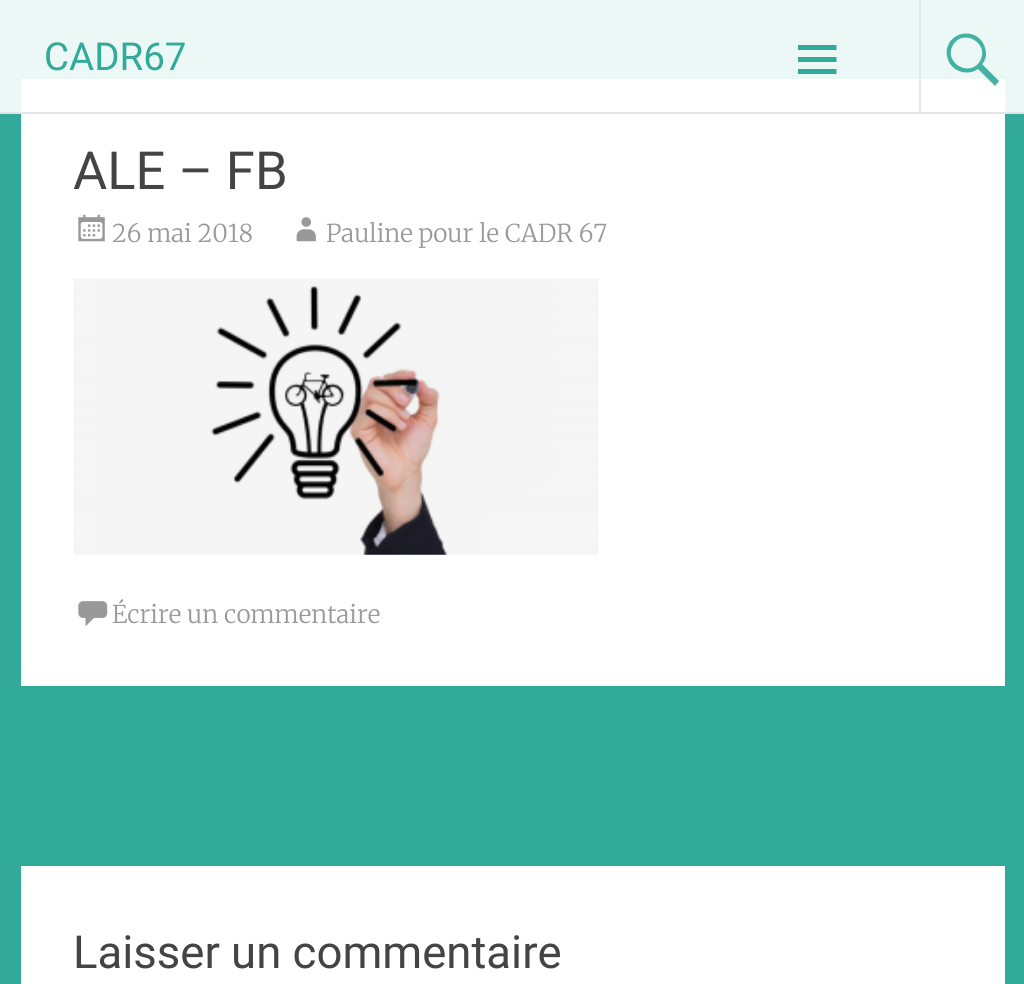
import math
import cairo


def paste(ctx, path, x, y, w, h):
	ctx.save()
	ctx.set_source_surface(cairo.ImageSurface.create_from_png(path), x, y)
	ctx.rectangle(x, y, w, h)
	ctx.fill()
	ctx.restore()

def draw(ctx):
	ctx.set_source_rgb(0.192, 0.667, 0.604)
	ctx.paint()
	ctx.set_source_rgb(0.918, 0.969, 0.961)
	ctx.rectangle(0, 0, 1024, 112)
	ctx.fill()
	ctx.select_font_face('Roboto')
	ctx.set_font_size(38.5)
	ctx.set_source_rgb(0.192, 0.667, 0.604)
	ctx.move_to(44, 70)
	ctx.show_text('CADR67')
	ctx.new_path()
	ctx.move_to(798, 74)
	ctx.line_to(798, 69)
	ctx.line_to(836.5, 69)
	ctx.line_to(836.5, 74)
	ctx.close_path()
	ctx.move_to(798, 45)
	ctx.line_to(836.5, 45)
	ctx.line_to(836.5, 50)
	ctx.line_to(798, 50)
	ctx.close_path()
	ctx.move_to(798, 62)
	ctx.line_to(798, 57)
	ctx.line_to(836.5, 57)
	ctx.line_to(836.5, 62)
	ctx.close_path()
	ctx.fill()
	ctx.set_source_rgb(1, 1, 1)
	ctx.rectangle(21, 79, 984, 33)
	ctx.fill()
	ctx.set_source_rgba(0.192, 0.667, 0.604, 0.9)
	ctx.new_path()
	ctx.move_to(999, 81)
	ctx.line_to(995, 86)
	ctx.line_to(978, 69)
	ctx.curve_to(968, 76, 954, 72, 949, 62)
	ctx.curve_to(947, 58, 946, 53, 947, 49)
	ctx.curve_to(951, 29, 980, 28, 985, 48)
	ctx.curve_to(987, 54, 986, 60, 982, 64)
	ctx.close_path()
	ctx.move_to(953, 45)
	ctx.curve_to(943, 63, 970, 78, 980, 61)
	ctx.curve_to(990, 43, 963, 28, 953, 45)
	ctx.close_path()
	ctx.fill()
	ctx.set_source_rgb(0.886, 0.902, 0.91)
	ctx.rectangle(919, 0, 2, 79)
	ctx.rectangle(0, 112, 1024, 2)
	ctx.fill()
	ctx.set_source_rgb(1, 1, 1)
	ctx.rectangle(21, 114, 984, 572)
	ctx.fill()
	ctx.set_source_rgb(0.894, 0.906, 0.914)
	ctx.rectangle(919, 79, 2, 33)
	ctx.fill()
	ctx.set_font_size(52.5)
	ctx.set_source_rgb(0.267, 0.267, 0.267)
	ctx.move_to(73, 189)
	ctx.show_text('ALE – FB')
	paste(ctx, 'media/1.png', 78, 214, 27, 28)
	ctx.select_font_face('Merriweather Light')
	ctx.set_font_size(24.5)
	ctx.set_source_rgb(0.6, 0.6, 0.6)
	ctx.move_to(112, 242)
	ctx.show_text('26 mai 2018')
	paste(ctx, 'media/2.png', 296, 217, 20, 25)
	ctx.move_to(326, 242)
	ctx.show_text('Pauline pour le CADR 67')
	paste(ctx, 'media/3.png', 73, 278, 526, 277)
	paste(ctx, 'media/4.png', 78, 601, 30, 26)
	ctx.move_to(112, 623)
	ctx.show_text('Écrire un commentaire')
	ctx.set_source_rgb(1, 1, 1)
	ctx.rectangle(21, 866, 984, 118)
	ctx.fill()
	ctx.select_font_face('Roboto')
	ctx.set_font_size(45.5)
	ctx.set_source_rgb(0.267, 0.267, 0.267)
	ctx.move_to(73, 968)
	ctx.show_text('Laisser un commentaire')


surface = cairo.ImageSurface(cairo.FORMAT_RGB24, 1024, 984)
ctx = cairo.Context(surface)
options = cairo.FontOptions()
options.set_hint_metrics(cairo.HINT_METRICS_OFF)
options.set_hint_style(cairo.HINT_STYLE_NONE)
ctx.set_font_options(options)
ctx.set_miter_limit(4)
draw(ctx)
surface.write_to_png('image.png')
